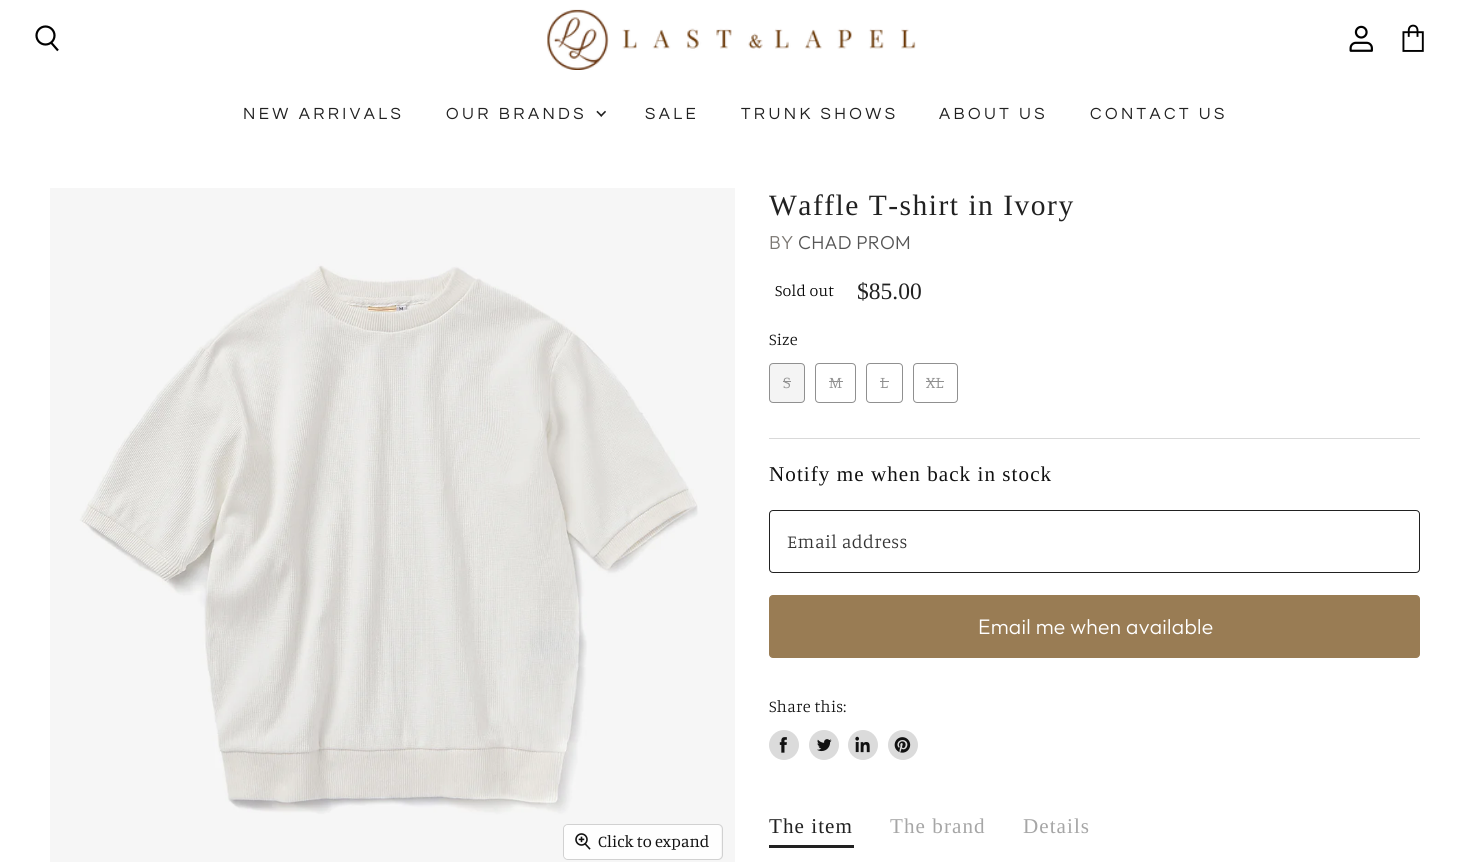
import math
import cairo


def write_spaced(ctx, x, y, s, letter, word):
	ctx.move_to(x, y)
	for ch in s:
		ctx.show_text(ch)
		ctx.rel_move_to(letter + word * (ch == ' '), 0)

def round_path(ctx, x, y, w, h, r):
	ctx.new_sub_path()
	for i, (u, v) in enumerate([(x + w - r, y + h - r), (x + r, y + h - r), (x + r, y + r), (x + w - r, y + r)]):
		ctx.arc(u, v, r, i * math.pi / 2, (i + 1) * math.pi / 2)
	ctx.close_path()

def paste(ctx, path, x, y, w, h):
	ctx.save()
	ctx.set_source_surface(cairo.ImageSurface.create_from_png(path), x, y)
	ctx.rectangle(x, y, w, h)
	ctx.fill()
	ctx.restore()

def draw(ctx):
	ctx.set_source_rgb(1, 1, 1)
	ctx.paint()
	paste(ctx, 'media/1.png', 547, 9, 369, 61)
	ctx.new_path()
	ctx.move_to(58, 50.5)
	ctx.line_to(51, 42.5)
	ctx.set_source_rgb(0, 0, 0)
	ctx.set_line_width(2.2)
	ctx.stroke()
	ctx.arc(45.5, 35.5, 9, 0, 2 * math.pi)
	ctx.stroke()
	paste(ctx, 'media/2.png', 1349, 25, 24, 27)
	paste(ctx, 'media/3.png', 1402, 24, 22, 28)
	ctx.select_font_face('Questrial')
	ctx.set_font_size(16.75)
	ctx.set_source_rgb(0.129, 0.129, 0.129)
	write_spaced(ctx, 243, 119, 'NEW ARRIVALS', 3.4, 0)
	write_spaced(ctx, 446, 119, 'OUR BRANDS', 3.4, 0)
	paste(ctx, 'media/4.png', 596, 110, 10, 7)
	for x, y, s in [
		(645, 119, 'SALE'),
		(741, 119, 'TRUNK SHOWS'),
		(939, 119, 'ABOUT US'),
		(1090, 119, 'CONTACT US'),
	]:
		write_spaced(ctx, x, y, s, 3.4, 0)
	ctx.select_font_face('Liberation Serif')
	ctx.set_font_size(29.5)
	write_spaced(ctx, 769, 215, 'Waffle T-shirt in Ivory', 1.5, 0)
	ctx.select_font_face('Outfit Light')
	ctx.set_font_size(18.75)
	ctx.set_source_rgb(0.486, 0.471, 0.451)
	write_spaced(ctx, 769, 249, 'BY', 0.25, 0)
	ctx.set_source_rgb(0.333, 0.333, 0.333)
	write_spaced(ctx, 798, 249, 'CHAD PROM', 0.25, 0)
	ctx.select_font_face('Manuale Light')
	ctx.set_font_size(16)
	ctx.set_source_rgb(0, 0, 0)
	write_spaced(ctx, 775, 296, 'Sold out', 0.25, 0)
	ctx.select_font_face('Liberation Serif')
	ctx.set_font_size(23.5)
	ctx.set_source_rgb(0.129, 0.129, 0.129)
	ctx.move_to(857, 299)
	ctx.show_text('$85.00')
	ctx.select_font_face('Manuale Light')
	ctx.set_font_size(16.5)
	ctx.set_source_rgb(0.067, 0.067, 0.067)
	write_spaced(ctx, 769, 345, 'Size', 0.25, 0)
	ctx.set_source_rgb(0.957, 0.957, 0.957)
	round_path(ctx, 769.5, 363.5, 35, 39, 3.5)
	ctx.fill_preserve()
	ctx.set_source_rgb(0.565, 0.565, 0.565)
	ctx.set_line_width(1)
	ctx.stroke()
	write_spaced(ctx, 783, 388, 'S', 0.25, 0)
	ctx.rectangle(783, 381, 8, 1)
	ctx.fill()
	round_path(ctx, 815.5, 363.5, 40, 39, 3.5)
	ctx.stroke()
	write_spaced(ctx, 829, 388, 'M', 0.25, 0)
	ctx.rectangle(829, 381, 14, 1)
	ctx.fill()
	round_path(ctx, 866.5, 363.5, 36, 39, 3.5)
	ctx.stroke()
	write_spaced(ctx, 880, 388, 'L', 0.25, 0)
	ctx.rectangle(880, 381, 9, 1)
	ctx.fill()
	round_path(ctx, 913.5, 363.5, 44, 39, 3.5)
	ctx.stroke()
	write_spaced(ctx, 926, 388, 'XL', 0.25, 0)
	ctx.rectangle(926, 381, 18, 1)
	ctx.fill()
	ctx.set_source_rgb(0.851, 0.851, 0.851)
	ctx.rectangle(769, 438, 651, 1)
	ctx.fill()
	ctx.select_font_face('Liberation Serif')
	ctx.set_font_size(21.1)
	ctx.set_source_rgb(0.067, 0.067, 0.067)
	write_spaced(ctx, 769, 481, 'Notify me when back in stock', 1.05, 0)
	round_path(ctx, 769.5, 510.5, 650, 62, 3.5)
	ctx.set_source_rgb(0.129, 0.129, 0.129)
	ctx.stroke()
	ctx.select_font_face('Manuale Light')
	ctx.set_font_size(18.75)
	ctx.set_source_rgb(0.2, 0.2, 0.2)
	write_spaced(ctx, 787, 548, 'Email address', 0.4, 0)
	ctx.set_source_rgb(0.6, 0.486, 0.329)
	round_path(ctx, 769.5, 595.5, 650, 62, 3.5)
	ctx.fill_preserve()
	ctx.stroke()
	ctx.select_font_face('Outfit Light')
	ctx.set_font_size(21.1)
	ctx.set_source_rgb(1, 1, 1)
	write_spaced(ctx, 978, 634, 'Email me when available', 0.25, 0)
	ctx.select_font_face('Manuale Light')
	ctx.set_font_size(16.5)
	ctx.set_source_rgb(0.067, 0.067, 0.067)
	write_spaced(ctx, 769, 712, 'Share this:', 0.25, 0)
	ctx.set_source_rgb(0.859, 0.859, 0.859)
	ctx.new_path()
	ctx.arc(784, 745, 15, 0, 2 * math.pi)
	ctx.fill()
	paste(ctx, 'media/5.png', 779, 737, 8, 16)
	ctx.arc(824, 745, 15, 0, 2 * math.pi)
	ctx.fill()
	paste(ctx, 'media/6.png', 817, 739, 15, 13)
	ctx.arc(863, 745, 15, 0, 2 * math.pi)
	ctx.fill()
	paste(ctx, 'media/7.png', 855, 736, 15, 17)
	ctx.arc(903, 745, 15, 0, 2 * math.pi)
	ctx.fill()
	paste(ctx, 'media/8.png', 894, 737, 17, 16)
	ctx.set_source_rgb(0.129, 0.129, 0.129)
	ctx.rectangle(769, 845, 85, 3)
	ctx.fill()
	ctx.select_font_face('Liberation Serif')
	ctx.set_font_size(21.1)
	write_spaced(ctx, 769, 833, 'The item', 1.05, 0)
	ctx.set_source_rgb(0.651, 0.651, 0.651)
	write_spaced(ctx, 890, 833, 'The brand', 1.05, 0)
	write_spaced(ctx, 1023, 833, 'Details', 1.05, 0)
	paste(ctx, 'media/9.png', 50, 188, 685, 674)
	round_path(ctx, 563.5, 824.5, 159, 35, 4.5)
	ctx.set_source_rgb(0.82, 0.82, 0.82)
	ctx.stroke()
	ctx.set_source_rgba(1, 1, 1, 0.9)
	round_path(ctx, 564, 825, 157, 34, 4)
	ctx.fill()
	paste(ctx, 'media/10.png', 575, 833, 16, 17)
	ctx.select_font_face('Manuale')
	ctx.set_font_size(16.5)
	ctx.set_source_rgb(0.067, 0.067, 0.067)
	ctx.move_to(598, 847)
	ctx.show_text('Click to expand')


surface = cairo.ImageSurface(cairo.FORMAT_RGB24, 1469, 862)
ctx = cairo.Context(surface)
options = cairo.FontOptions()
options.set_hint_metrics(cairo.HINT_METRICS_OFF)
options.set_hint_style(cairo.HINT_STYLE_NONE)
ctx.set_font_options(options)
ctx.set_miter_limit(4)
draw(ctx)
surface.write_to_png('image.png')
